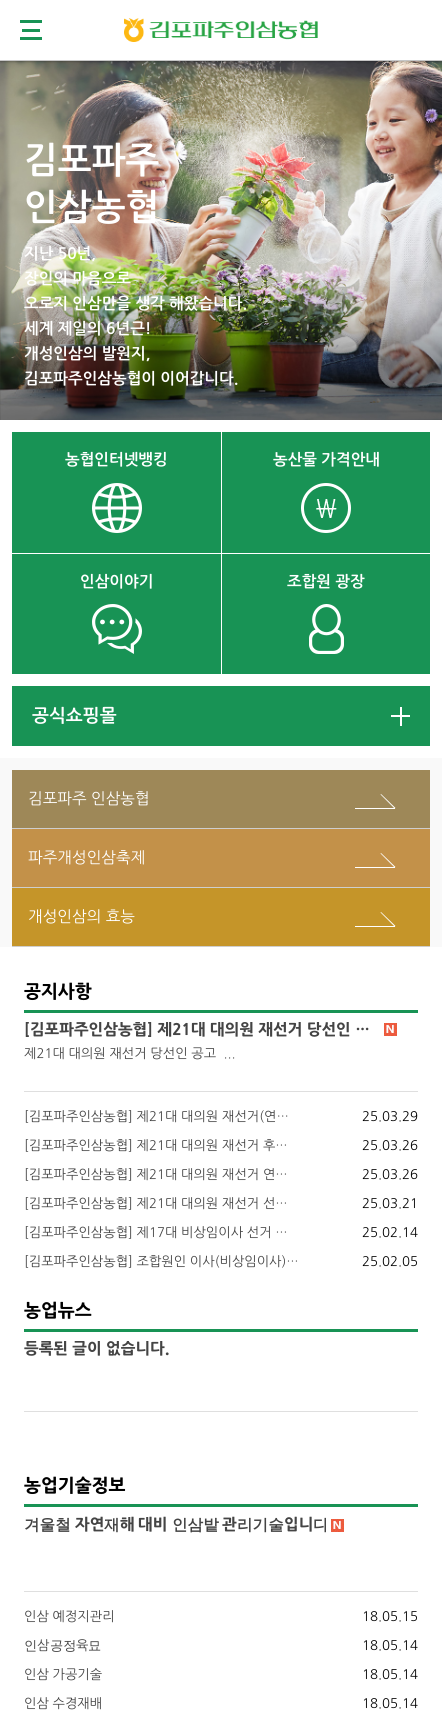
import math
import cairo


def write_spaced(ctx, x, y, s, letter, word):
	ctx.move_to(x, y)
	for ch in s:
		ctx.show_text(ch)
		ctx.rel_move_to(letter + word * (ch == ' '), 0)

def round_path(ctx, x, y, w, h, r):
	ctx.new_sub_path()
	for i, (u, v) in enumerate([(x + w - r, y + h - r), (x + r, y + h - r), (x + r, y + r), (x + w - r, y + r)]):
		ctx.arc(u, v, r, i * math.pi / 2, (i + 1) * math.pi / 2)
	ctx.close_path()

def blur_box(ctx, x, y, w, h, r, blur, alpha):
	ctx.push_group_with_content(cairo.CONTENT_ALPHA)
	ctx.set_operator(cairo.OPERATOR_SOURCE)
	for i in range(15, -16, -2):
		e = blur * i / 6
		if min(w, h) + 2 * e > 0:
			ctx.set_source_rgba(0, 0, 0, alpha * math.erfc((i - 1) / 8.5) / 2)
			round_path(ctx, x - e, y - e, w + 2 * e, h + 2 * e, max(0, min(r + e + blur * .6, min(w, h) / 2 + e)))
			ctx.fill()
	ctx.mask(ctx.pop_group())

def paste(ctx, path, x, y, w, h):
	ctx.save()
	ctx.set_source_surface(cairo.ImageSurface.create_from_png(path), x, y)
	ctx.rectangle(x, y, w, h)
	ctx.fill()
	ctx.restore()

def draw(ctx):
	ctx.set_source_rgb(1, 1, 1)
	ctx.paint()
	paste(ctx, 'media/2.png', 0, 61, 442, 359)
	ctx.set_source_rgb(0, 0, 0)
	blur_box(ctx, 0, 0, 442, 61, 0, 1.5, 0.5)
	ctx.set_source_rgb(1, 1, 1)
	ctx.rectangle(0, 0, 442, 60)
	ctx.fill()
	ctx.set_source_rgb(0.776, 0.776, 0.776)
	ctx.rectangle(0, 60, 442, 1)
	ctx.fill()
	ctx.set_source_rgb(0.094, 0.576, 0.333)
	ctx.rectangle(20, 20, 22, 3)
	ctx.rectangle(22, 29, 18, 3)
	ctx.rectangle(20, 37, 22, 3)
	ctx.fill()
	paste(ctx, 'media/1.png', 124, 18, 194, 24)
	ctx.select_font_face('NanumGothic', cairo.FONT_SLANT_NORMAL, cairo.FONT_WEIGHT_BOLD)
	ctx.set_font_size(36)
	ctx.set_source_rgb(1, 1, 1)
	ctx.move_to(24, 173)
	ctx.show_text('김포파주')
	ctx.move_to(24, 220)
	ctx.show_text('인삼농협')
	ctx.set_font_size(15.6)
	for x, y, s in [
		(24, 259, '지난 50년,'),
		(24, 284, '장인의 마음으로'),
		(24, 309, '오로지 인삼만을 생각 해왔습니다.'),
		(24, 334, '세계 제일의 6년근!'),
		(24, 359, '개성인삼의 발원지,'),
		(24, 384, '김포파주인삼농협이 이어갑니다.'),
	]:
		ctx.move_to(x, y)
		ctx.show_text(s)
	ctx.set_source_rgb(0.094, 0.576, 0.333)
	ctx.rectangle(12, 432, 418, 242)
	ctx.fill()
	ctx.set_source_rgb(1, 1, 1)
	ctx.move_to(65, 465)
	ctx.show_text('농협인터넷뱅킹')
	paste(ctx, 'media/3.png', 92, 483, 50, 50)
	ctx.rectangle(221, 432, 1, 121)
	ctx.fill()
	ctx.move_to(273, 465)
	ctx.show_text('농산물 가격안내')
	paste(ctx, 'media/4.png', 301, 483, 50, 50)
	ctx.rectangle(12, 553, 418, 1)
	ctx.fill()
	ctx.move_to(80, 587)
	ctx.show_text('인삼이야기')
	paste(ctx, 'media/5.png', 92, 604, 50, 50)
	ctx.rectangle(221, 553, 1, 121)
	ctx.fill()
	ctx.move_to(287, 587)
	ctx.show_text('조합원 광장')
	paste(ctx, 'media/6.png', 309, 604, 35, 50)
	ctx.set_source_rgb(0.094, 0.576, 0.333)
	ctx.rectangle(12, 686, 418, 60)
	ctx.fill()
	ctx.set_font_size(18)
	ctx.set_source_rgb(1, 1, 1)
	ctx.move_to(32, 722)
	ctx.show_text('공식쇼핑몰')
	ctx.rectangle(400, 707, 2, 19)
	ctx.rectangle(391, 715, 19, 2)
	ctx.fill()
	ctx.set_source_rgb(0.976, 0.976, 0.976)
	ctx.rectangle(0, 758, 442, 189)
	ctx.fill()
	ctx.set_source_rgb(0.62, 0.533, 0.345)
	ctx.rectangle(12, 770, 418, 58)
	ctx.fill()
	ctx.set_source_rgb(0.808, 0.808, 0.808)
	ctx.rectangle(12, 828, 418, 1)
	ctx.fill()
	ctx.select_font_face('NanumGothic')
	ctx.set_font_size(15.6)
	ctx.set_source_rgb(1, 1, 1)
	ctx.move_to(28, 804)
	ctx.show_text('김포파주 인삼농협')
	ctx.new_path()
	ctx.move_to(381, 794)
	ctx.line_to(395.5, 808)
	ctx.line_to(394.5, 808.5)
	ctx.line_to(380.5, 794.5)
	ctx.close_path()
	ctx.fill()
	ctx.rectangle(355, 808, 40, 1)
	ctx.fill()
	ctx.set_source_rgb(0.765, 0.569, 0.286)
	ctx.rectangle(12, 829, 418, 58)
	ctx.fill()
	ctx.set_source_rgb(0.808, 0.808, 0.808)
	ctx.rectangle(12, 887, 418, 1)
	ctx.fill()
	ctx.set_source_rgb(1, 1, 1)
	ctx.move_to(28, 863)
	ctx.show_text('파주개성인삼축제')
	ctx.new_path()
	ctx.move_to(381, 853)
	ctx.line_to(395.5, 867)
	ctx.line_to(394.5, 867.5)
	ctx.line_to(380.5, 853.5)
	ctx.close_path()
	ctx.fill()
	ctx.rectangle(355, 867, 40, 1)
	ctx.fill()
	ctx.set_source_rgb(0.773, 0.584, 0.161)
	ctx.rectangle(12, 888, 418, 58)
	ctx.fill()
	ctx.set_source_rgb(0.808, 0.808, 0.808)
	ctx.rectangle(12, 946, 418, 1)
	ctx.fill()
	ctx.set_source_rgb(1, 1, 1)
	ctx.move_to(28, 922)
	ctx.show_text('개성인삼의 효능')
	ctx.new_path()
	ctx.move_to(381, 912)
	ctx.line_to(395.5, 926)
	ctx.line_to(394.5, 926.5)
	ctx.line_to(380.5, 912.5)
	ctx.close_path()
	ctx.fill()
	ctx.rectangle(355, 926, 40, 1)
	ctx.fill()
	ctx.set_source_rgb(0.094, 0.576, 0.333)
	ctx.rectangle(24, 1010, 394, 3)
	ctx.fill()
	ctx.select_font_face('NanumGothic ExtraBold')
	ctx.set_font_size(18)
	ctx.set_source_rgb(0, 0, 0)
	ctx.move_to(24, 998)
	ctx.show_text('공지사항')
	ctx.set_source_rgb(0.875, 0.875, 0.875)
	ctx.rectangle(24, 1091, 394, 1)
	ctx.fill()
	ctx.save()
	ctx.rectangle(24, 1022, 355, 15)
	ctx.clip()
	ctx.set_font_size(15.6)
	ctx.set_source_rgb(0.267, 0.267, 0.267)
	ctx.move_to(24, 1035)
	ctx.show_text('[김포파주인삼농협] 제21대 대의원 재선거 당선인 …')
	ctx.restore()
	paste(ctx, 'media/7.png', 384, 1023, 13, 13)
	ctx.select_font_face('NanumGothic')
	ctx.set_font_size(13.2)
	ctx.set_source_rgb(0.267, 0.267, 0.267)
	ctx.move_to(24, 1058)
	ctx.show_text('제21대 대의원 재선거 당선인 공고  ...')
	ctx.move_to(24, 1121)
	ctx.show_text('[김포파주인삼농협] 제21대 대의원 재선거(연…')
	ctx.set_source_rgb(0, 0, 0)
	ctx.move_to(362, 1121)
	ctx.show_text('25.03.29')
	ctx.set_source_rgb(0.267, 0.267, 0.267)
	ctx.move_to(24, 1150)
	ctx.show_text('[김포파주인삼농협] 제21대 대의원 재선거 후…')
	ctx.set_source_rgb(0, 0, 0)
	ctx.move_to(362, 1150)
	ctx.show_text('25.03.26')
	ctx.set_source_rgb(0.267, 0.267, 0.267)
	ctx.move_to(24, 1179)
	ctx.show_text('[김포파주인삼농협] 제21대 대의원 재선거 연…')
	ctx.set_source_rgb(0, 0, 0)
	ctx.move_to(362, 1179)
	ctx.show_text('25.03.26')
	ctx.set_source_rgb(0.267, 0.267, 0.267)
	ctx.move_to(24, 1208)
	ctx.show_text('[김포파주인삼농협] 제21대 대의원 재선거 선…')
	ctx.set_source_rgb(0, 0, 0)
	ctx.move_to(362, 1208)
	ctx.show_text('25.03.21')
	ctx.set_source_rgb(0.267, 0.267, 0.267)
	ctx.move_to(24, 1237)
	ctx.show_text('[김포파주인삼농협] 제17대 비상임이사 선거 …')
	ctx.set_source_rgb(0, 0, 0)
	ctx.move_to(362, 1237)
	ctx.show_text('25.02.14')
	ctx.set_source_rgb(0.267, 0.267, 0.267)
	ctx.move_to(24, 1266)
	ctx.show_text('[김포파주인삼농협] 조합원인 이사(비상임이사)…')
	ctx.set_source_rgb(0, 0, 0)
	ctx.move_to(362, 1266)
	ctx.show_text('25.02.05')
	ctx.set_source_rgb(0.094, 0.576, 0.333)
	ctx.rectangle(24, 1329, 394, 3)
	ctx.fill()
	ctx.select_font_face('NanumGothic ExtraBold')
	ctx.set_font_size(18)
	ctx.set_source_rgb(0, 0, 0)
	ctx.move_to(24, 1317)
	ctx.show_text('농업뉴스')
	ctx.set_source_rgb(0.875, 0.875, 0.875)
	ctx.rectangle(24, 1411, 394, 1)
	ctx.fill()
	ctx.save()
	ctx.rectangle(24, 1341, 145, 15)
	ctx.clip()
	ctx.set_font_size(15.6)
	ctx.set_source_rgb(0.267, 0.267, 0.267)
	ctx.move_to(24, 1354)
	ctx.show_text('등록된 글이 없습니다.')
	ctx.restore()
	ctx.set_source_rgb(0.094, 0.576, 0.333)
	ctx.rectangle(24, 1504, 394, 3)
	ctx.fill()
	ctx.set_source_rgb(0, 0, 0)
	ctx.move_to(24, 1492)
	ctx.show_text('농업기술정보')
	ctx.set_source_rgb(0.875, 0.875, 0.875)
	ctx.rectangle(24, 1591, 394, 1)
	ctx.fill()
	ctx.select_font_face('WenQuanYi Zen Hei', cairo.FONT_SLANT_NORMAL, cairo.FONT_WEIGHT_BOLD)
	ctx.set_font_size(15.6)
	ctx.set_source_rgb(0.267, 0.267, 0.267)
	ctx.move_to(24, 1530)
	ctx.show_text('겨울철')
	ctx.select_font_face('NanumGothic ExtraBold')
	ctx.move_to(75, 1530)
	ctx.show_text('자연')
	ctx.select_font_face('WenQuanYi Zen Hei', cairo.FONT_SLANT_NORMAL, cairo.FONT_WEIGHT_BOLD)
	ctx.move_to(104, 1530)
	ctx.show_text('재')
	ctx.select_font_face('NanumGothic ExtraBold')
	write_spaced(ctx, 120, 1530, '해 대비', 0, -1)
	ctx.select_font_face('WenQuanYi Zen Hei', cairo.FONT_SLANT_NORMAL, cairo.FONT_WEIGHT_BOLD)
	ctx.move_to(172, 1530)
	ctx.show_text('인삼밭')
	ctx.select_font_face('NanumGothic ExtraBold')
	ctx.move_to(222, 1530)
	ctx.show_text('관')
	ctx.select_font_face('WenQuanYi Zen Hei', cairo.FONT_SLANT_NORMAL, cairo.FONT_WEIGHT_BOLD)
	ctx.move_to(237, 1530)
	ctx.show_text('리기술')
	ctx.select_font_face('NanumGothic ExtraBold')
	ctx.move_to(284, 1530)
	ctx.show_text('입니')
	ctx.save()
	ctx.rectangle(24, 1515, 302, 21)
	ctx.clip()
	ctx.select_font_face('WenQuanYi Zen Hei', cairo.FONT_SLANT_NORMAL, cairo.FONT_WEIGHT_BOLD)
	ctx.move_to(313, 1530)
	ctx.show_text('다')
	ctx.restore()
	paste(ctx, 'media/7.png', 331, 1519, 13, 13)
	ctx.select_font_face('NanumGothic')
	ctx.set_font_size(13.2)
	ctx.move_to(24, 1621)
	ctx.show_text('인삼 예정지관리')
	ctx.set_source_rgb(0, 0, 0)
	ctx.move_to(362, 1621)
	ctx.show_text('18.05.15')
	ctx.select_font_face('WenQuanYi Zen Hei Medium')
	ctx.set_source_rgb(0.267, 0.267, 0.267)
	ctx.move_to(24, 1650)
	ctx.show_text('인')
	ctx.select_font_face('NanumGothic')
	ctx.move_to(37, 1650)
	ctx.show_text('삼')
	ctx.select_font_face('WenQuanYi Zen Hei Medium')
	ctx.move_to(50, 1650)
	ctx.show_text('공정')
	ctx.select_font_face('NanumGothic')
	ctx.move_to(76, 1650)
	ctx.show_text('육')
	ctx.select_font_face('WenQuanYi Zen Hei Medium')
	ctx.move_to(88, 1650)
	ctx.show_text('묘')
	ctx.select_font_face('NanumGothic')
	ctx.set_source_rgb(0, 0, 0)
	ctx.move_to(362, 1650)
	ctx.show_text('18.05.14')
	ctx.set_source_rgb(0.267, 0.267, 0.267)
	ctx.move_to(24, 1679)
	ctx.show_text('인삼 가공기술')
	ctx.set_source_rgb(0, 0, 0)
	ctx.move_to(362, 1679)
	ctx.show_text('18.05.14')
	ctx.set_source_rgb(0.267, 0.267, 0.267)
	ctx.move_to(24, 1708)
	ctx.show_text('인삼 수경재배')
	ctx.set_source_rgb(0, 0, 0)
	ctx.move_to(362, 1708)
	ctx.show_text('18.05.14')


surface = cairo.ImageSurface(cairo.FORMAT_RGB24, 442, 1715)
ctx = cairo.Context(surface)
options = cairo.FontOptions()
options.set_hint_metrics(cairo.HINT_METRICS_OFF)
options.set_hint_style(cairo.HINT_STYLE_NONE)
ctx.set_font_options(options)
ctx.set_miter_limit(4)
draw(ctx)
surface.write_to_png('image.png')
